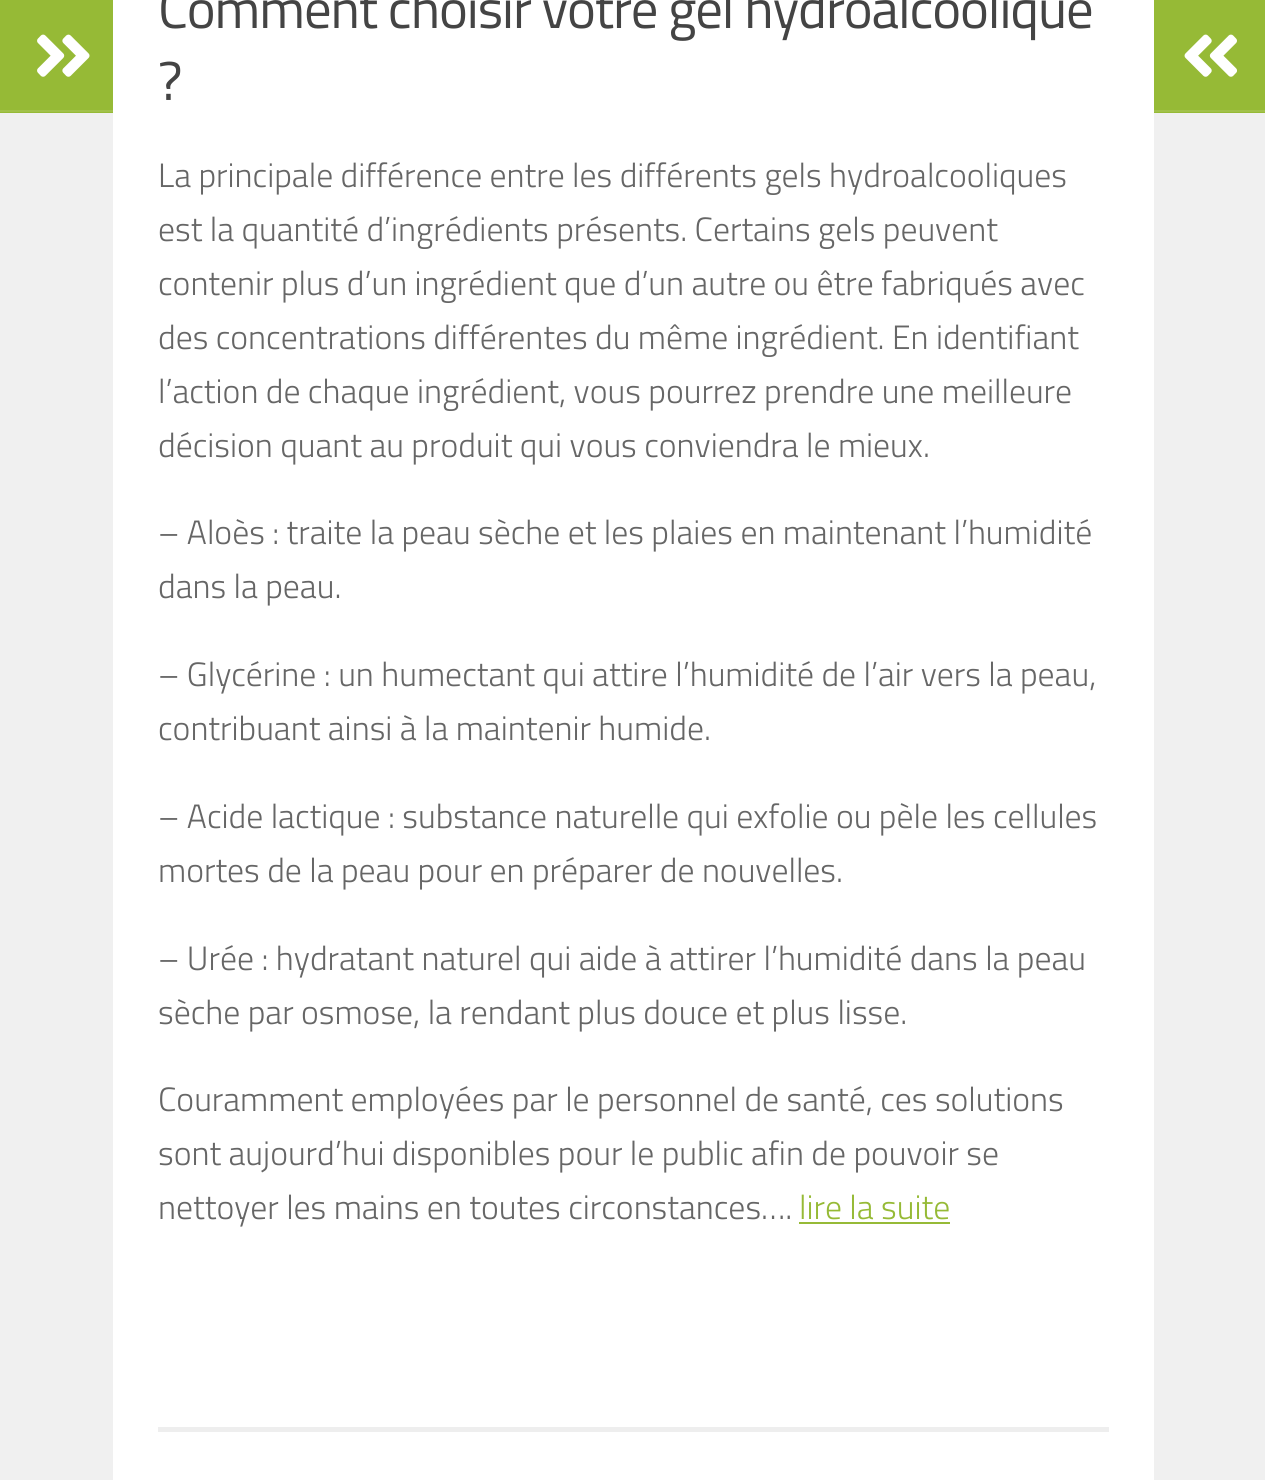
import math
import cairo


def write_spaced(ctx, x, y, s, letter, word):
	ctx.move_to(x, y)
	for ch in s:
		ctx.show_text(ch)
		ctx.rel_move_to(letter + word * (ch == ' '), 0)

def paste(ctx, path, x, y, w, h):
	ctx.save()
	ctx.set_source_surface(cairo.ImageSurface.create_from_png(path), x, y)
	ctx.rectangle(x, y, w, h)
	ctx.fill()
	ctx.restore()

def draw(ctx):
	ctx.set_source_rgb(1, 1, 1)
	ctx.paint()
	ctx.set_source_rgb(0.941, 0.941, 0.941)
	ctx.rectangle(0, 113, 113, 1367)
	ctx.fill()
	ctx.set_source_rgb(0.588, 0.729, 0.212)
	ctx.rectangle(0, 0, 113, 113)
	ctx.fill()
	ctx.set_source_rgb(0.631, 0.757, 0.29)
	ctx.rectangle(0, 110, 113, 2)
	ctx.fill()
	paste(ctx, 'media/1.png', 37, 34, 53, 43)
	ctx.select_font_face('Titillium')
	ctx.set_font_size(54.8)
	ctx.set_source_rgb(0.267, 0.267, 0.267)
	write_spaced(ctx, 158, 28, 'Comment choisir votre gel hydroalcoolique', -1.1, 0)
	write_spaced(ctx, 158, 100, '?', -1.1, 0)
	ctx.select_font_face('Titillium Light')
	ctx.set_font_size(33.75)
	ctx.set_source_rgb(0.4, 0.4, 0.4)
	for x, y, s in [
		(158, 187, 'La principale différence entre les différents gels hydroalcooliques'),
		(158, 241, 'est la quantité d’ingrédients présents. Certains gels peuvent'),
		(158, 295, 'contenir plus d’un ingrédient que d’un autre ou être fabriqués avec'),
		(158, 349, 'des concentrations différentes du même ingrédient. En identifiant'),
		(158, 403, 'l’action de chaque ingrédient, vous pourrez prendre une meilleure'),
		(158, 457, 'décision quant au produit qui vous conviendra le mieux.'),
		(158, 544, '– Aloès : traite la peau sèche et les plaies en maintenant l’humidité'),
		(158, 598, 'dans la peau.'),
		(158, 686, '– Glycérine : un humectant qui attire l’humidité de l’air vers la peau,'),
		(158, 740, 'contribuant ainsi à la maintenir humide.'),
		(158, 828, '– Acide lactique : substance naturelle qui exfolie ou pèle les cellules'),
		(158, 882, 'mortes de la peau pour en préparer de nouvelles.'),
		(158, 970, '– Urée : hydratant naturel qui aide à attirer l’humidité dans la peau'),
		(158, 1024, 'sèche par osmose, la rendant plus douce et plus lisse.'),
		(158, 1111, 'Couramment employées par le personnel de santé, ces solutions'),
		(158, 1165, 'sont aujourd’hui disponibles pour le public afin de pouvoir se'),
		(158, 1219, 'nettoyer les mains en toutes circonstances….'),
	]:
		ctx.move_to(x, y)
		ctx.show_text(s)
	ctx.set_source_rgb(0.588, 0.729, 0.212)
	ctx.move_to(799, 1219)
	ctx.show_text('lire la suite')
	ctx.rectangle(799, 1222, 151, 2)
	ctx.fill()
	ctx.set_source_rgb(0.933, 0.933, 0.933)
	ctx.rectangle(158, 1427, 951, 5)
	ctx.fill()
	ctx.set_source_rgb(0.588, 0.729, 0.212)
	ctx.rectangle(1154, 0, 111, 113)
	ctx.fill()
	ctx.set_source_rgb(0.631, 0.757, 0.29)
	ctx.rectangle(1154, 110, 111, 2)
	ctx.fill()
	paste(ctx, 'media/2.png', 1184, 34, 53, 43)
	ctx.set_source_rgb(0.941, 0.941, 0.941)
	ctx.rectangle(1154, 113, 111, 1367)
	ctx.fill()


surface = cairo.ImageSurface(cairo.FORMAT_RGB24, 1265, 1480)
ctx = cairo.Context(surface)
options = cairo.FontOptions()
options.set_hint_metrics(cairo.HINT_METRICS_OFF)
options.set_hint_style(cairo.HINT_STYLE_NONE)
ctx.set_font_options(options)
ctx.set_miter_limit(4)
draw(ctx)
surface.write_to_png('image.png')
